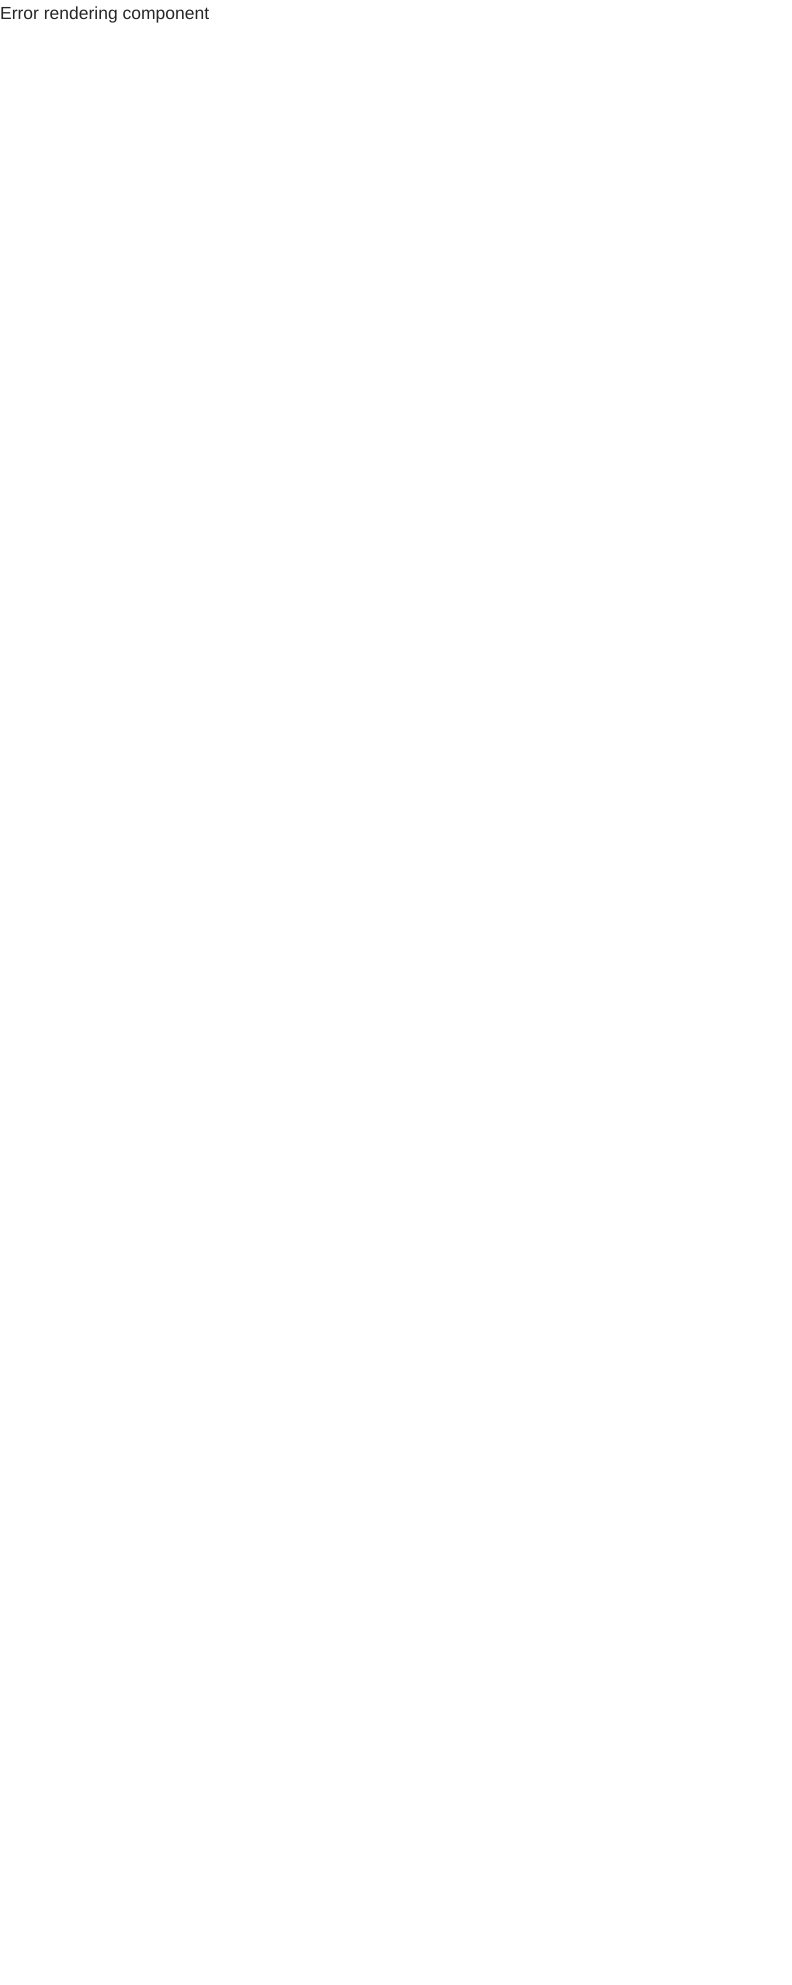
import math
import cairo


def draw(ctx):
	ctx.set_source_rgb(1, 1, 1)
	ctx.paint()
	ctx.select_font_face('Liberation Sans')
	ctx.set_font_size(17.5)
	ctx.set_source_rgb(0.149, 0.149, 0.149)
	ctx.move_to(0, 19)
	ctx.show_text('Error rendering component')


surface = cairo.ImageSurface(cairo.FORMAT_RGB24, 792, 1985)
ctx = cairo.Context(surface)
options = cairo.FontOptions()
options.set_hint_metrics(cairo.HINT_METRICS_OFF)
options.set_hint_style(cairo.HINT_STYLE_NONE)
ctx.set_font_options(options)
ctx.set_miter_limit(4)
draw(ctx)
surface.write_to_png('image.png')
